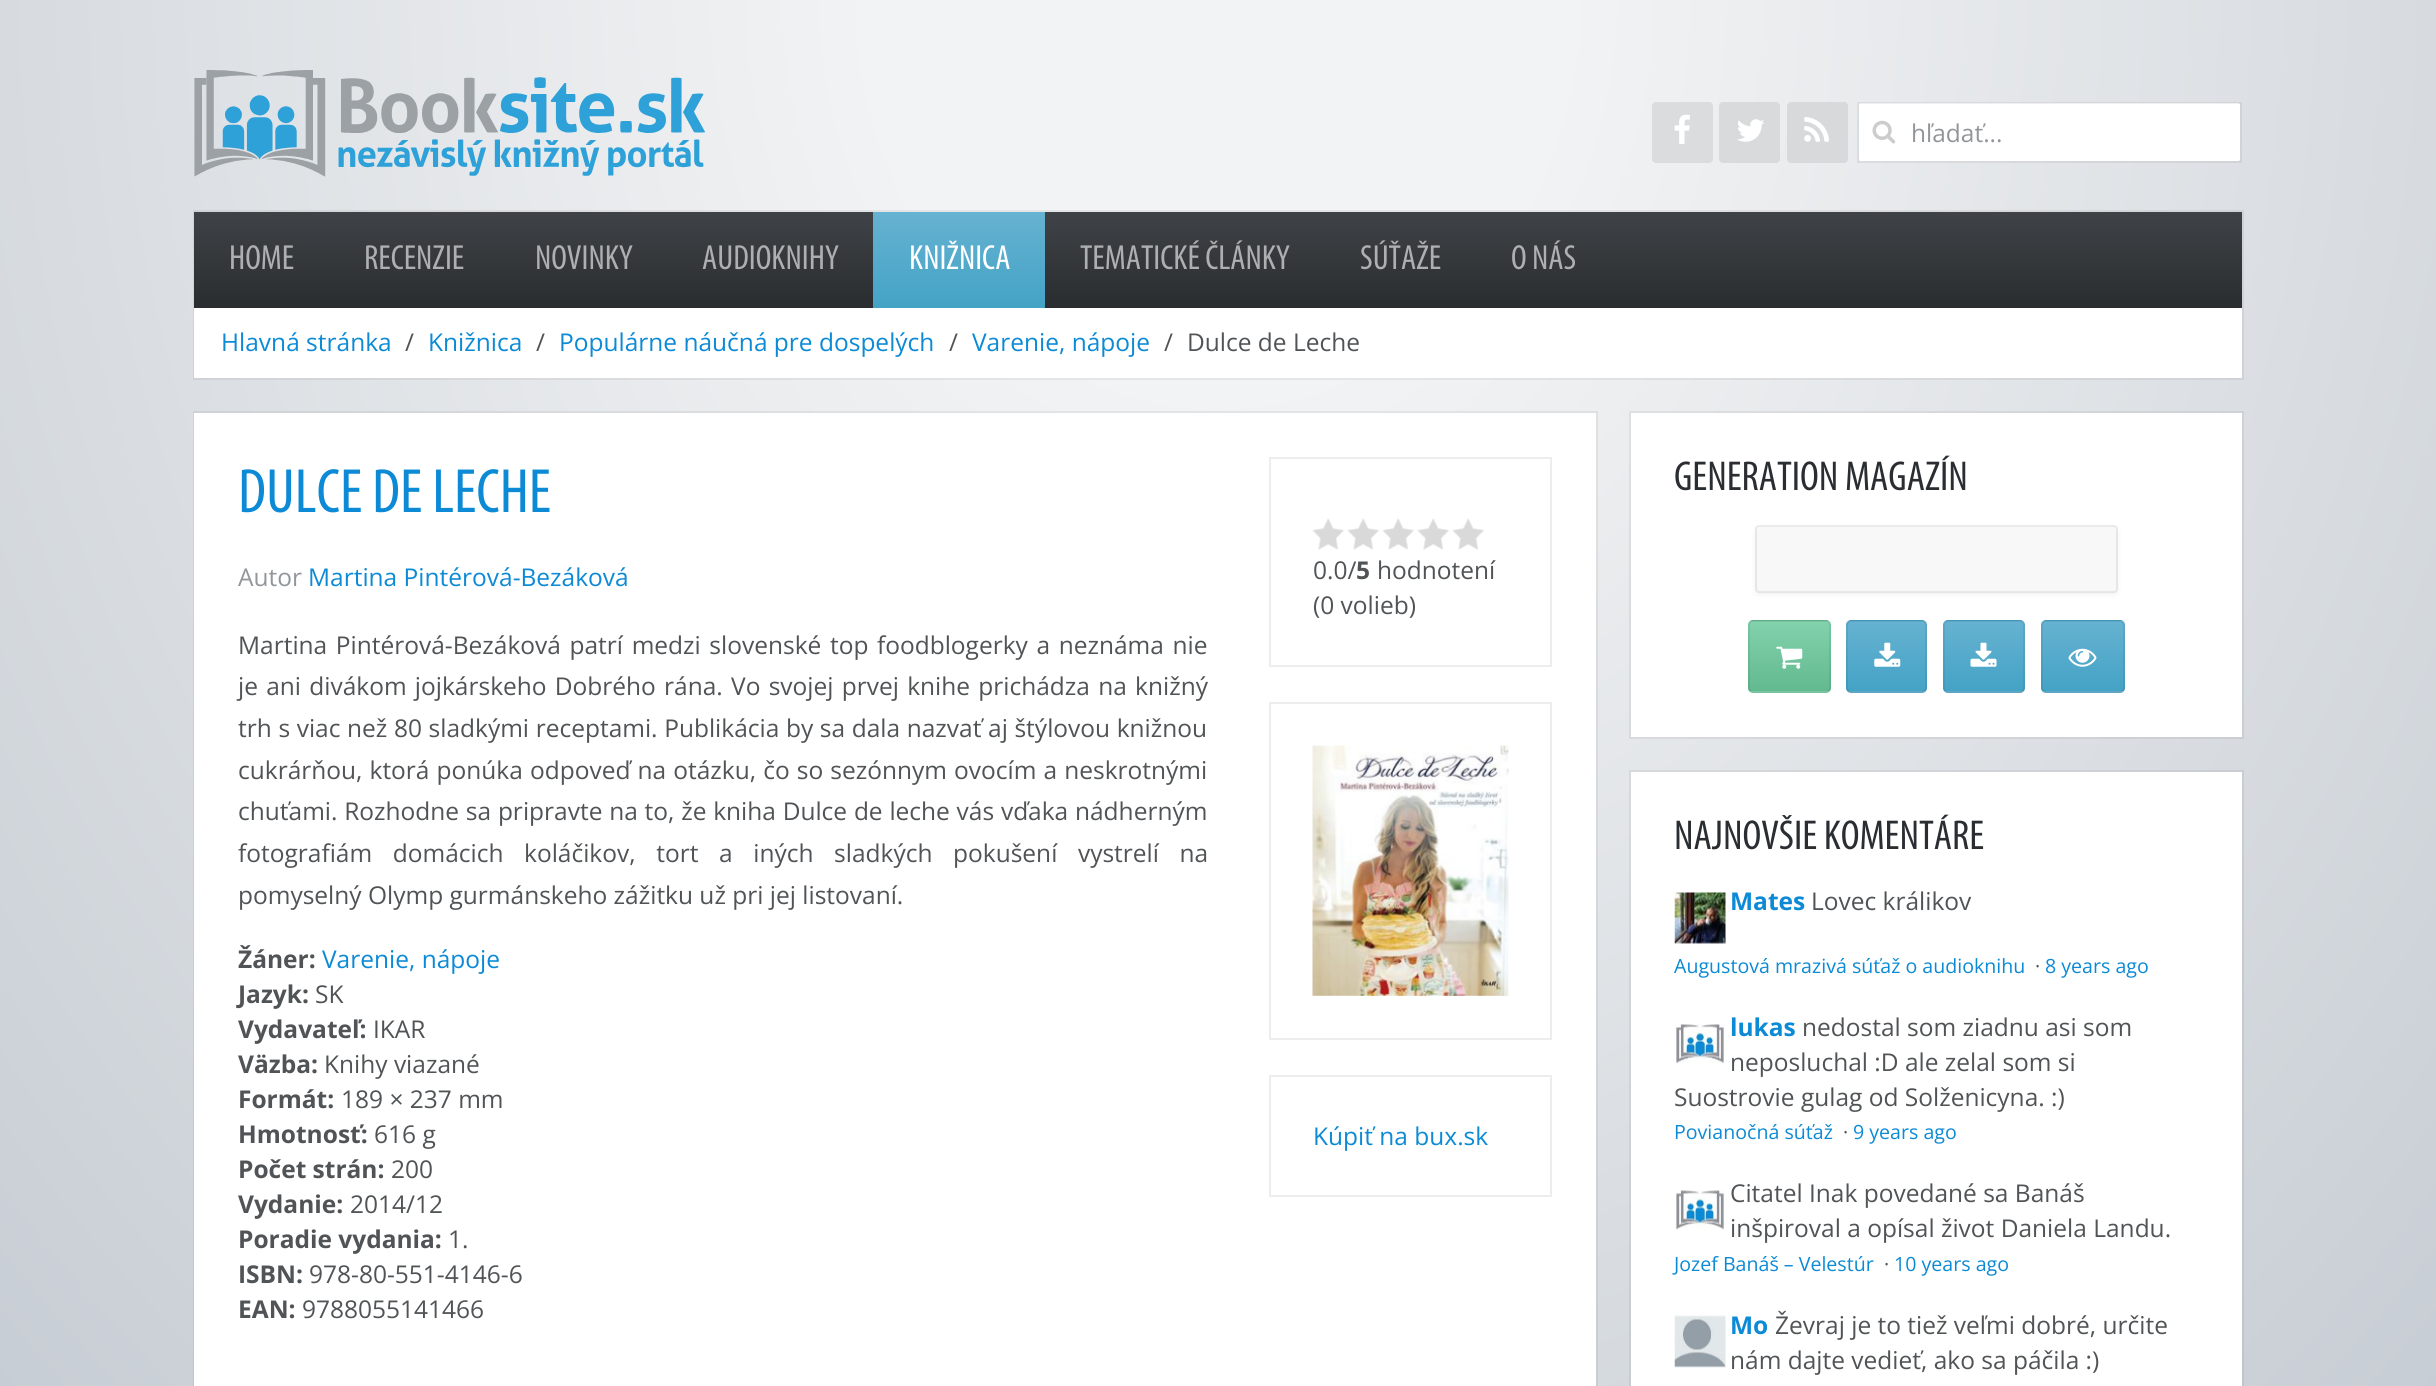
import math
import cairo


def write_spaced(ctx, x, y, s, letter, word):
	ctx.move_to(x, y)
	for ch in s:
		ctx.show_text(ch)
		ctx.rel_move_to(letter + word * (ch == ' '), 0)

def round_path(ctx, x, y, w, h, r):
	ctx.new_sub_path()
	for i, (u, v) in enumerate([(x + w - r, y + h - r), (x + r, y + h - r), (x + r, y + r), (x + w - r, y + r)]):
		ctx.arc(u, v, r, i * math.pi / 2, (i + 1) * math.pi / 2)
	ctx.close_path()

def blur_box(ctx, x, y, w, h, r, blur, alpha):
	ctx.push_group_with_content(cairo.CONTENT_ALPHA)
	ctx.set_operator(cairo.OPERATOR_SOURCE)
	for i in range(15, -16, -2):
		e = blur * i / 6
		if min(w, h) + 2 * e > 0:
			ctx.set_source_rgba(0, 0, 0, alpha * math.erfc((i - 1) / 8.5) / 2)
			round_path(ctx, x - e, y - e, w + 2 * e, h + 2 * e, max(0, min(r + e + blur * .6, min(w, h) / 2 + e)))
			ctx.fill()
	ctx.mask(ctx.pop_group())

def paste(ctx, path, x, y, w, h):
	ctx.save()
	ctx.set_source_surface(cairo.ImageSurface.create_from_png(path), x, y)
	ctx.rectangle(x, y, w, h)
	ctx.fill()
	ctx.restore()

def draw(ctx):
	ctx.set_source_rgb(1, 1, 1)
	ctx.paint()
	gradient = cairo.RadialGradient(0, 0, 0, 0, 0, 1)
	gradient.set_matrix(cairo.Matrix(1 / 1723, 0, 0, 1 / 1960, -1 * 1218 / 1723, -1 * 0 / 1960))
	gradient.add_color_stop_rgba(0.2, 0.949, 0.953, 0.957, 1)
	gradient.add_color_stop_rgba(1, 0.78, 0.804, 0.831, 1)
	ctx.set_source(gradient)
	ctx.rectangle(0, 0, 2436, 1386)
	ctx.fill()
	paste(ctx, 'media/1.png', 194, 70, 511, 107)
	ctx.set_source_rgb(0.859, 0.863, 0.871)
	round_path(ctx, 1652, 102, 61, 61, 4)
	ctx.fill()
	paste(ctx, 'media/2.png', 1674, 114, 16, 30)
	ctx.set_source_rgb(0.851, 0.855, 0.863)
	round_path(ctx, 1719, 102, 61, 61, 4)
	ctx.fill()
	paste(ctx, 'media/3.png', 1737, 119, 27, 23)
	ctx.set_source_rgb(0.843, 0.851, 0.859)
	round_path(ctx, 1787, 102, 61, 61, 4)
	ctx.fill()
	paste(ctx, 'media/4.png', 1804, 117, 25, 25)
	ctx.set_source_rgb(1, 1, 1)
	round_path(ctx, 1859, 103, 381, 58, 2)
	ctx.fill()
	ctx.rectangle(1858, 103, 383, 59)
	ctx.set_source_rgba(0, 0, 0, 0.06)
	ctx.stroke()
	paste(ctx, 'media/5.png', 1872, 120, 24, 24)
	ctx.select_font_face('Open Sans')
	ctx.set_font_size(24.5)
	ctx.set_source_rgb(0.573, 0.588, 0.604)
	ctx.move_to(1911, 142)
	ctx.show_text('hľadať...')
	ctx.rectangle(194, 211, 2049, 168)
	ctx.set_source_rgba(0, 0, 0, 0.06)
	ctx.stroke()
	ctx.set_source_rgb(1, 1, 1)
	ctx.rectangle(194, 308, 2048, 70)
	ctx.fill()
	gradient = cairo.LinearGradient(1218, 212, 1218, 308)
	gradient.add_color_stop_rgba(0, 0.247, 0.259, 0.275, 1)
	gradient.add_color_stop_rgba(1, 0.165, 0.176, 0.188, 1)
	ctx.set_source(gradient)
	ctx.rectangle(194, 212, 2048, 96)
	ctx.fill()
	ctx.select_font_face('Myriad')
	ctx.set_font_size(35)
	ctx.set_source_rgb(0.682, 0.686, 0.694)
	for x, y, s in [
		(229, 269, 'HOME'),
		(364, 269, 'RECENZIE'),
		(535, 269, 'NOVINKY'),
		(702, 269, 'AUDIOKNIHY'),
	]:
		ctx.move_to(x, y)
		ctx.show_text(s)
	gradient = cairo.LinearGradient(959, 212, 959, 308)
	gradient.add_color_stop_rgba(0, 0.4, 0.698, 0.82, 1)
	gradient.add_color_stop_rgba(1, 0.267, 0.639, 0.776, 1)
	ctx.set_source(gradient)
	ctx.rectangle(873, 212, 172, 96)
	ctx.fill()
	ctx.set_source_rgb(1, 1, 1)
	ctx.move_to(909, 269)
	ctx.show_text('KNIŽNICA')
	ctx.set_source_rgb(0.682, 0.686, 0.694)
	for x, y, s in [
		(1080, 269, 'TEMATICKÉ ČLÁNKY'),
		(1360, 269, 'SÚŤAŽE'),
		(1511, 269, 'O NÁS'),
	]:
		ctx.move_to(x, y)
		ctx.show_text(s)
	ctx.select_font_face('Open Sans')
	ctx.set_font_size(24.5)
	ctx.set_source_rgb(0.047, 0.541, 0.835)
	ctx.move_to(221, 351)
	ctx.show_text('Hlavná stránka')
	ctx.set_source_rgb(0.318, 0.329, 0.337)
	ctx.move_to(405, 351)
	ctx.show_text('/')
	ctx.set_source_rgb(0.047, 0.541, 0.835)
	ctx.move_to(428, 351)
	ctx.show_text('Knižnica')
	ctx.set_source_rgb(0.318, 0.329, 0.337)
	ctx.move_to(536, 351)
	ctx.show_text('/')
	ctx.set_source_rgb(0.047, 0.541, 0.835)
	ctx.move_to(559, 351)
	ctx.show_text('Populárne náučná pre dospelých')
	ctx.set_source_rgb(0.318, 0.329, 0.337)
	ctx.move_to(949, 351)
	ctx.show_text('/')
	ctx.set_source_rgb(0.047, 0.541, 0.835)
	ctx.move_to(972, 351)
	ctx.show_text('Varenie, nápoje')
	ctx.set_source_rgb(0.318, 0.329, 0.337)
	ctx.move_to(1164, 351)
	ctx.show_text('/')
	ctx.move_to(1187, 351)
	ctx.show_text('Dulce de Leche')
	ctx.rectangle(194, 412, 1403, 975)
	ctx.set_source_rgba(0, 0, 0, 0.06)
	ctx.stroke()
	ctx.set_source_rgb(1, 1, 1)
	ctx.rectangle(194, 413, 1402, 973)
	ctx.fill()
	ctx.select_font_face('Myriad')
	ctx.set_font_size(63)
	ctx.set_source_rgb(0.047, 0.541, 0.835)
	ctx.move_to(238, 512)
	ctx.show_text('DULCE DE LECHE')
	ctx.select_font_face('Open Sans')
	ctx.set_font_size(24.5)
	ctx.set_source_rgb(0.573, 0.588, 0.604)
	ctx.move_to(238, 586)
	ctx.show_text('Autor')
	ctx.set_source_rgb(0.047, 0.541, 0.835)
	ctx.move_to(308, 586)
	ctx.show_text('Martina Pintérová-Bezáková')
	ctx.set_source_rgb(0.318, 0.329, 0.337)
	write_spaced(ctx, 238, 654, 'Martina Pintérová-Bezáková patrí medzi slovenské top foodblogerky a neznáma nie', 0, 2.25)
	write_spaced(ctx, 238, 695, 'je ani divákom jojkárskeho Dobrého rána. Vo svojej prvej knihe prichádza na knižný', 0, 1.9)
	write_spaced(ctx, 238, 737, 'trh s viac než 80 sladkými receptami. Publikácia by sa dala nazvať aj štýlovou knižnou', 0, 0.25)
	write_spaced(ctx, 238, 779, 'cukrárňou, ktorá ponúka odpoveď na otázku, čo so sezónnym ovocím a neskrotnými', 0, 0.75)
	write_spaced(ctx, 238, 820, 'chuťami. Rozhodne sa pripravte na to, že kniha Dulce de leche vás vďaka nádherným', 0, 0.4)
	write_spaced(ctx, 238, 862, 'fotografiám domácich koláčikov, tort a iných sladkých pokušení vystrelí na', 0, 14.25)
	ctx.move_to(238, 904)
	ctx.show_text('pomyselný Olymp gurmánskeho zážitku už pri jej listovaní.')
	ctx.select_font_face('Open Sans', cairo.FONT_SLANT_NORMAL, cairo.FONT_WEIGHT_BOLD)
	ctx.move_to(238, 968)
	ctx.show_text('Žáner:')
	ctx.select_font_face('Open Sans')
	ctx.set_source_rgb(0.047, 0.541, 0.835)
	ctx.move_to(322, 968)
	ctx.show_text('Varenie, nápoje')
	ctx.select_font_face('Open Sans', cairo.FONT_SLANT_NORMAL, cairo.FONT_WEIGHT_BOLD)
	ctx.set_source_rgb(0.318, 0.329, 0.337)
	ctx.move_to(238, 1003)
	ctx.show_text('Jazyk:')
	ctx.select_font_face('Open Sans')
	ctx.move_to(315, 1003)
	ctx.show_text('SK')
	ctx.select_font_face('Open Sans', cairo.FONT_SLANT_NORMAL, cairo.FONT_WEIGHT_BOLD)
	ctx.move_to(238, 1038)
	ctx.show_text('Vydavateľ:')
	ctx.select_font_face('Open Sans')
	ctx.move_to(373, 1038)
	ctx.show_text('IKAR')
	ctx.select_font_face('Open Sans', cairo.FONT_SLANT_NORMAL, cairo.FONT_WEIGHT_BOLD)
	ctx.move_to(238, 1073)
	ctx.show_text('Väzba:')
	ctx.select_font_face('Open Sans')
	ctx.move_to(324, 1073)
	ctx.show_text('Knihy viazané')
	ctx.select_font_face('Open Sans', cairo.FONT_SLANT_NORMAL, cairo.FONT_WEIGHT_BOLD)
	ctx.move_to(238, 1108)
	ctx.show_text('Formát:')
	ctx.select_font_face('Open Sans')
	ctx.move_to(341, 1108)
	ctx.show_text('189 × 237 mm')
	ctx.select_font_face('Open Sans', cairo.FONT_SLANT_NORMAL, cairo.FONT_WEIGHT_BOLD)
	ctx.move_to(238, 1143)
	ctx.show_text('Hmotnosť:')
	ctx.select_font_face('Open Sans')
	ctx.move_to(374, 1143)
	ctx.show_text('616 g')
	ctx.select_font_face('Open Sans', cairo.FONT_SLANT_NORMAL, cairo.FONT_WEIGHT_BOLD)
	ctx.move_to(238, 1178)
	ctx.show_text('Počet strán:')
	ctx.select_font_face('Open Sans')
	ctx.move_to(391, 1178)
	ctx.show_text('200')
	ctx.select_font_face('Open Sans', cairo.FONT_SLANT_NORMAL, cairo.FONT_WEIGHT_BOLD)
	ctx.move_to(238, 1213)
	ctx.show_text('Vydanie:')
	ctx.select_font_face('Open Sans')
	ctx.move_to(350, 1213)
	ctx.show_text('2014/12')
	ctx.select_font_face('Open Sans', cairo.FONT_SLANT_NORMAL, cairo.FONT_WEIGHT_BOLD)
	ctx.move_to(238, 1248)
	ctx.show_text('Poradie vydania:')
	ctx.select_font_face('Open Sans')
	ctx.move_to(448, 1248)
	ctx.show_text('1.')
	ctx.select_font_face('Open Sans', cairo.FONT_SLANT_NORMAL, cairo.FONT_WEIGHT_BOLD)
	ctx.move_to(238, 1283)
	ctx.show_text('ISBN:')
	ctx.select_font_face('Open Sans')
	ctx.move_to(309, 1283)
	ctx.show_text('978-80-551-4146-6')
	ctx.select_font_face('Open Sans', cairo.FONT_SLANT_NORMAL, cairo.FONT_WEIGHT_BOLD)
	ctx.move_to(238, 1318)
	ctx.show_text('EAN:')
	ctx.select_font_face('Open Sans')
	ctx.move_to(302, 1318)
	ctx.show_text('9788055141466')
	ctx.rectangle(1270, 458, 281, 208)
	ctx.set_source_rgb(0.929, 0.929, 0.929)
	ctx.stroke()
	paste(ctx, 'media/6.png', 1312, 518, 172, 32)
	ctx.set_source_rgb(0.318, 0.329, 0.337)
	ctx.move_to(1313, 579)
	ctx.show_text('0.0/')
	ctx.select_font_face('Open Sans', cairo.FONT_SLANT_NORMAL, cairo.FONT_WEIGHT_BOLD)
	ctx.move_to(1356, 579)
	ctx.show_text('5')
	ctx.select_font_face('Open Sans')
	ctx.move_to(1377, 579)
	ctx.show_text('hodnotení')
	ctx.move_to(1313, 614)
	ctx.show_text('(0 volieb)')
	ctx.rectangle(1270, 703, 281, 336)
	ctx.set_source_rgb(0.929, 0.929, 0.929)
	ctx.stroke()
	paste(ctx, 'media/7.png', 1312, 745, 197, 251)
	ctx.rectangle(1270, 1076, 281, 120)
	ctx.stroke()
	ctx.set_source_rgb(0.047, 0.541, 0.835)
	ctx.move_to(1313, 1145)
	ctx.show_text('Kúpiť na bux.sk')
	ctx.rectangle(1630, 412, 613, 326)
	ctx.set_source_rgba(0, 0, 0, 0.06)
	ctx.stroke()
	ctx.set_source_rgb(1, 1, 1)
	ctx.rectangle(1631, 413, 611, 324)
	ctx.fill()
	ctx.select_font_face('Myriad')
	ctx.set_font_size(42)
	ctx.set_source_rgb(0.165, 0.176, 0.192)
	ctx.move_to(1674, 490)
	ctx.show_text('GENERATION MAGAZÍN')
	ctx.set_source_rgb(0, 0, 0)
	blur_box(ctx, 1755, 527, 363, 68, 4, 2.5, 0.05)
	ctx.set_source_rgb(0.969, 0.969, 0.969)
	round_path(ctx, 1757, 527, 359, 65, 2)
	ctx.fill()
	round_path(ctx, 1756, 526, 361, 66, 3)
	ctx.set_source_rgba(0, 0, 0, 0.07)
	ctx.stroke()
	ctx.save()
	round_path(ctx, 1748, 620, 83, 73, 5)
	ctx.clip()
	gradient = cairo.LinearGradient(1789, 551, 1789, 621)
	gradient.add_color_stop_rgba(0, 0.51, 0.824, 0.678, 1)
	gradient.add_color_stop_rgba(1, 0.388, 0.725, 0.561, 1)
	ctx.set_source(gradient)
	ctx.rectangle(1748, 620, 83, 1)
	ctx.fill()
	gradient = cairo.LinearGradient(1789, 621, 1789, 691)
	gradient.add_color_stop_rgba(0, 0.51, 0.824, 0.678, 1)
	gradient.add_color_stop_rgba(1, 0.388, 0.725, 0.561, 1)
	ctx.set_source(gradient)
	ctx.rectangle(1748, 621, 83, 70)
	ctx.fill()
	gradient = cairo.LinearGradient(1789, 691, 1789, 761)
	gradient.add_color_stop_rgba(0, 0.51, 0.824, 0.678, 1)
	gradient.add_color_stop_rgba(1, 0.388, 0.725, 0.561, 1)
	ctx.set_source(gradient)
	ctx.rectangle(1748, 691, 83, 2)
	ctx.fill()
	ctx.restore()
	round_path(ctx, 1749, 621, 81, 71, 4)
	ctx.stroke()
	paste(ctx, 'media/8.png', 1776, 646, 27, 23)
	ctx.save()
	round_path(ctx, 1846, 620, 81, 73, 5)
	ctx.clip()
	gradient = cairo.LinearGradient(1887, 551, 1887, 621)
	gradient.add_color_stop_rgba(0, 0.4, 0.698, 0.82, 1)
	gradient.add_color_stop_rgba(1, 0.267, 0.639, 0.776, 1)
	ctx.set_source(gradient)
	ctx.rectangle(1846, 620, 81, 1)
	ctx.fill()
	gradient = cairo.LinearGradient(1887, 621, 1887, 691)
	gradient.add_color_stop_rgba(0, 0.4, 0.698, 0.82, 1)
	gradient.add_color_stop_rgba(1, 0.267, 0.639, 0.776, 1)
	ctx.set_source(gradient)
	ctx.rectangle(1846, 621, 81, 70)
	ctx.fill()
	gradient = cairo.LinearGradient(1887, 691, 1887, 761)
	gradient.add_color_stop_rgba(0, 0.4, 0.698, 0.82, 1)
	gradient.add_color_stop_rgba(1, 0.267, 0.639, 0.776, 1)
	ctx.set_source(gradient)
	ctx.rectangle(1846, 691, 81, 2)
	ctx.fill()
	ctx.restore()
	round_path(ctx, 1847, 621, 79, 71, 4)
	ctx.stroke()
	paste(ctx, 'media/9.png', 1874, 642, 27, 25)
	ctx.save()
	round_path(ctx, 1943, 620, 82, 73, 5)
	ctx.clip()
	gradient = cairo.LinearGradient(1984, 551, 1984, 621)
	gradient.add_color_stop_rgba(0, 0.4, 0.698, 0.82, 1)
	gradient.add_color_stop_rgba(1, 0.267, 0.639, 0.776, 1)
	ctx.set_source(gradient)
	ctx.rectangle(1943, 620, 82, 1)
	ctx.fill()
	gradient = cairo.LinearGradient(1984, 621, 1984, 691)
	gradient.add_color_stop_rgba(0, 0.4, 0.698, 0.82, 1)
	gradient.add_color_stop_rgba(1, 0.267, 0.639, 0.776, 1)
	ctx.set_source(gradient)
	ctx.rectangle(1943, 621, 82, 70)
	ctx.fill()
	gradient = cairo.LinearGradient(1984, 691, 1984, 761)
	gradient.add_color_stop_rgba(0, 0.4, 0.698, 0.82, 1)
	gradient.add_color_stop_rgba(1, 0.267, 0.639, 0.776, 1)
	ctx.set_source(gradient)
	ctx.rectangle(1943, 691, 82, 2)
	ctx.fill()
	ctx.restore()
	round_path(ctx, 1944, 621, 80, 71, 4)
	ctx.stroke()
	paste(ctx, 'media/10.png', 1970, 642, 27, 25)
	ctx.save()
	round_path(ctx, 2041, 620, 84, 73, 5)
	ctx.clip()
	gradient = cairo.LinearGradient(2083, 551, 2083, 621)
	gradient.add_color_stop_rgba(0, 0.4, 0.698, 0.82, 1)
	gradient.add_color_stop_rgba(1, 0.267, 0.639, 0.776, 1)
	ctx.set_source(gradient)
	ctx.rectangle(2041, 620, 84, 1)
	ctx.fill()
	gradient = cairo.LinearGradient(2083, 621, 2083, 691)
	gradient.add_color_stop_rgba(0, 0.4, 0.698, 0.82, 1)
	gradient.add_color_stop_rgba(1, 0.267, 0.639, 0.776, 1)
	ctx.set_source(gradient)
	ctx.rectangle(2041, 621, 84, 70)
	ctx.fill()
	gradient = cairo.LinearGradient(2083, 691, 2083, 761)
	gradient.add_color_stop_rgba(0, 0.4, 0.698, 0.82, 1)
	gradient.add_color_stop_rgba(1, 0.267, 0.639, 0.776, 1)
	ctx.set_source(gradient)
	ctx.rectangle(2041, 691, 84, 2)
	ctx.fill()
	ctx.restore()
	round_path(ctx, 2042, 621, 82, 71, 4)
	ctx.stroke()
	paste(ctx, 'media/11.png', 2068, 648, 29, 19)
	ctx.rectangle(1630, 771, 613, 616)
	ctx.set_source_rgba(0, 0, 0, 0.06)
	ctx.stroke()
	ctx.set_source_rgb(1, 1, 1)
	ctx.rectangle(1631, 772, 611, 614)
	ctx.fill()
	ctx.set_source_rgb(0.165, 0.176, 0.192)
	ctx.move_to(1674, 849)
	ctx.show_text('NAJNOVŠIE KOMENTÁRE')
	paste(ctx, 'media/12.png', 1674, 892, 52, 52)
	ctx.select_font_face('Open Sans', cairo.FONT_SLANT_NORMAL, cairo.FONT_WEIGHT_BOLD)
	ctx.set_font_size(24.5)
	ctx.set_source_rgb(0.047, 0.541, 0.835)
	ctx.move_to(1730, 910)
	ctx.show_text('Mates')
	ctx.select_font_face('Open Sans')
	ctx.set_source_rgb(0.318, 0.329, 0.337)
	ctx.move_to(1811, 910)
	ctx.show_text('Lovec králikov')
	ctx.set_font_size(19.6)
	ctx.set_source_rgb(0.047, 0.541, 0.835)
	ctx.move_to(1674, 973)
	ctx.show_text('Augustová mrazivá súťaž o audioknihu')
	ctx.set_source_rgb(0.318, 0.329, 0.337)
	ctx.move_to(2035, 973)
	ctx.show_text('·')
	ctx.set_source_rgb(0.047, 0.541, 0.835)
	ctx.move_to(2045, 973)
	ctx.show_text('8 years ago')
	paste(ctx, 'media/13.png', 1675, 1024, 51, 40)
	ctx.select_font_face('Open Sans', cairo.FONT_SLANT_NORMAL, cairo.FONT_WEIGHT_BOLD)
	ctx.set_font_size(24.5)
	ctx.move_to(1730, 1036)
	ctx.show_text('lukas')
	ctx.select_font_face('Open Sans')
	ctx.set_source_rgb(0.318, 0.329, 0.337)
	for x, y, s in [
		(1802, 1036, 'nedostal som ziadnu asi som'),
		(1730, 1071, 'neposluchal :D ale zelal som si'),
		(1674, 1106, 'Suostrovie gulag od Solženicyna. :)'),
	]:
		ctx.move_to(x, y)
		ctx.show_text(s)
	ctx.set_font_size(19.6)
	ctx.set_source_rgb(0.047, 0.541, 0.835)
	ctx.move_to(1674, 1139)
	ctx.show_text('Povianočná súťaž')
	ctx.set_source_rgb(0.318, 0.329, 0.337)
	ctx.move_to(1843, 1139)
	ctx.show_text('·')
	ctx.set_source_rgb(0.047, 0.541, 0.835)
	ctx.move_to(1853, 1139)
	ctx.show_text('9 years ago')
	paste(ctx, 'media/14.png', 1675, 1190, 51, 40)
	ctx.set_font_size(24.5)
	ctx.set_source_rgb(0.318, 0.329, 0.337)
	ctx.move_to(1730, 1202)
	ctx.show_text('Citatel Inak povedané sa Banáš')
	ctx.move_to(1730, 1237)
	ctx.show_text('inšpiroval a opísal život Daniela Landu.')
	ctx.set_font_size(19.6)
	ctx.set_source_rgb(0.047, 0.541, 0.835)
	ctx.move_to(1674, 1271)
	ctx.show_text('Jozef Banáš – Velestúr')
	ctx.set_source_rgb(0.318, 0.329, 0.337)
	ctx.move_to(1884, 1271)
	ctx.show_text('·')
	ctx.set_source_rgb(0.047, 0.541, 0.835)
	ctx.move_to(1894, 1271)
	ctx.show_text('10 years ago')
	paste(ctx, 'media/15.png', 1674, 1315, 52, 53)
	ctx.select_font_face('Open Sans', cairo.FONT_SLANT_NORMAL, cairo.FONT_WEIGHT_BOLD)
	ctx.set_font_size(24.5)
	ctx.move_to(1730, 1334)
	ctx.show_text('Mo')
	ctx.select_font_face('Open Sans')
	ctx.set_source_rgb(0.318, 0.329, 0.337)
	ctx.move_to(1775, 1334)
	ctx.show_text('Ževraj je to tiež veľmi dobré, určite')
	ctx.move_to(1730, 1369)
	ctx.show_text('nám dajte vedieť, ako sa páčila :)')


surface = cairo.ImageSurface(cairo.FORMAT_RGB24, 2436, 1386)
ctx = cairo.Context(surface)
options = cairo.FontOptions()
options.set_hint_metrics(cairo.HINT_METRICS_OFF)
options.set_hint_style(cairo.HINT_STYLE_NONE)
ctx.set_font_options(options)
ctx.set_miter_limit(4)
draw(ctx)
surface.write_to_png('image.png')
